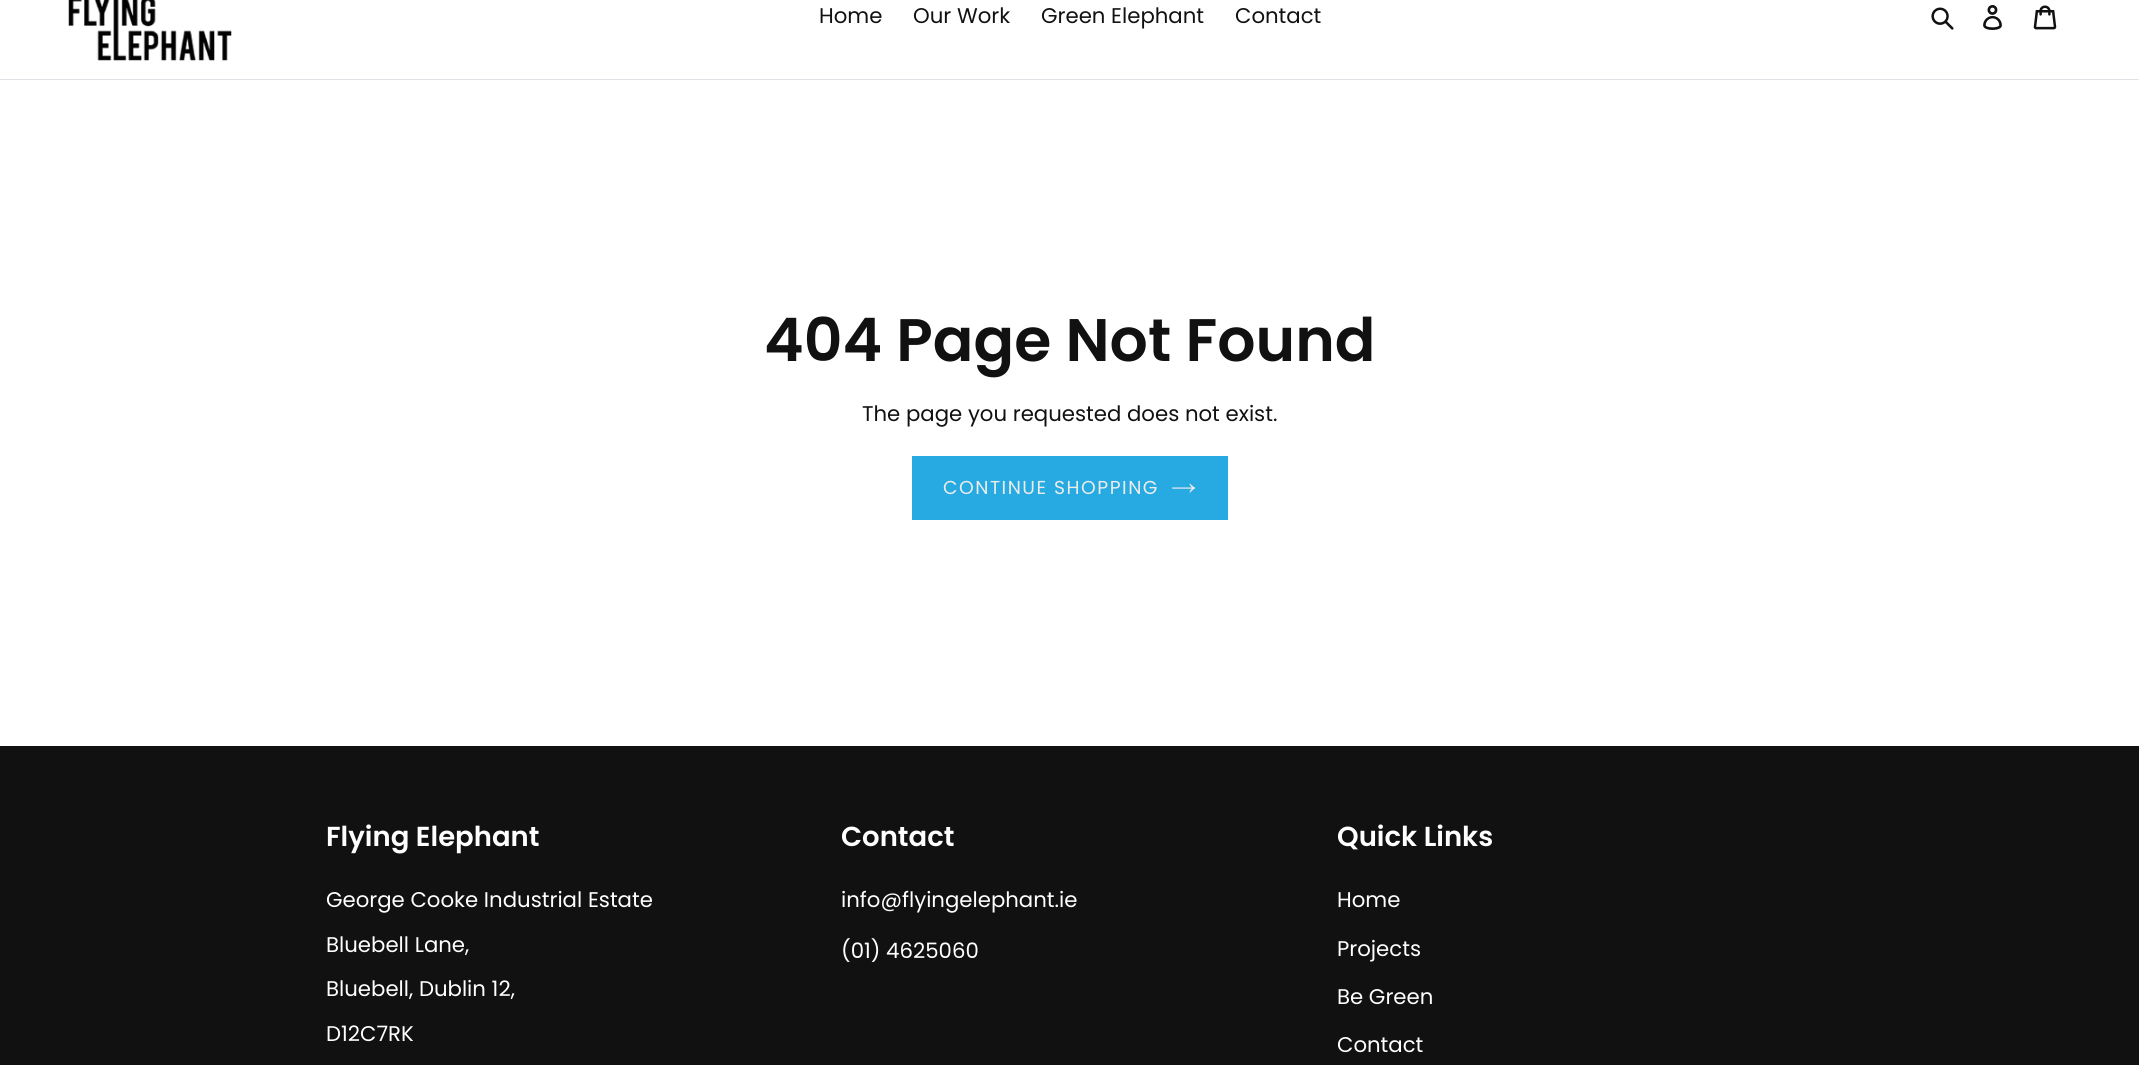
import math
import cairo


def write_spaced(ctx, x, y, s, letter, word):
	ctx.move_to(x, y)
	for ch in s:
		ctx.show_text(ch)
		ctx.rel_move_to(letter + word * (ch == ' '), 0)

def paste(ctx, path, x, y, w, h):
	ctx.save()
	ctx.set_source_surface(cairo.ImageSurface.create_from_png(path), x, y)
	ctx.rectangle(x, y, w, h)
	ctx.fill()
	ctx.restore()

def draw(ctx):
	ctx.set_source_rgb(1, 1, 1)
	ctx.paint()
	ctx.set_source_rgb(0.871, 0.886, 0.902)
	ctx.rectangle(0, 79, 2139, 1)
	ctx.fill()
	paste(ctx, 'media/1.png', 68, 0, 164, 61)
	ctx.select_font_face('Poppins')
	ctx.set_font_size(21.25)
	ctx.set_source_rgb(0.067, 0.067, 0.067)
	for x, y, s in [
		(819, 23, 'Home'),
		(913, 23, 'Our Work'),
		(1041, 23, 'Green Elephant'),
		(1235, 23, 'Contact'),
	]:
		ctx.move_to(x, y)
		ctx.show_text(s)
	paste(ctx, 'media/2.png', 1931, 7, 23, 23)
	paste(ctx, 'media/3.png', 1983, 5, 19, 25)
	paste(ctx, 'media/4.png', 2033, 5, 24, 25)
	ctx.select_font_face('Poppins SemiBold')
	ctx.set_font_size(60)
	ctx.move_to(764, 361)
	ctx.show_text('404 Page Not Found')
	ctx.select_font_face('Poppins')
	ctx.set_font_size(21.25)
	ctx.move_to(862, 421)
	ctx.show_text('The page you requested does not exist.')
	ctx.set_source_rgb(0.153, 0.667, 0.882)
	ctx.rectangle(912, 456, 316, 64)
	ctx.fill()
	ctx.set_font_size(18.75)
	ctx.set_source_rgb(0.922, 0.922, 0.922)
	write_spaced(ctx, 943, 494, 'CONTINUE SHOPPING', 1.5, 0)
	paste(ctx, 'media/5.png', 1172, 483, 24, 10)
	ctx.set_source_rgb(0.067, 0.067, 0.067)
	ctx.rectangle(0, 746, 2139, 319)
	ctx.fill()
	ctx.select_font_face('Poppins SemiBold')
	ctx.set_font_size(27.5)
	ctx.set_source_rgb(1, 1, 1)
	ctx.move_to(326, 846)
	ctx.show_text('Flying Elephant')
	ctx.select_font_face('Poppins')
	ctx.set_font_size(21.25)
	for x, y, s in [
		(326, 907, 'George Cooke Industrial Estate'),
		(326, 952, 'Bluebell Lane,'),
		(326, 996, 'Bluebell, Dublin 12,'),
		(326, 1041, 'D12C7RK'),
	]:
		ctx.move_to(x, y)
		ctx.show_text(s)
	ctx.select_font_face('Poppins SemiBold')
	ctx.set_font_size(27.5)
	ctx.move_to(841, 846)
	ctx.show_text('Contact')
	ctx.select_font_face('Poppins')
	ctx.set_font_size(21.25)
	ctx.move_to(841, 907)
	ctx.show_text('info@flyingelephant.ie')
	ctx.move_to(841, 958)
	ctx.show_text('(01) 4625060')
	ctx.select_font_face('Poppins SemiBold')
	ctx.set_font_size(27.5)
	ctx.move_to(1337, 846)
	ctx.show_text('Quick Links')
	ctx.select_font_face('Poppins')
	ctx.set_font_size(21.25)
	for x, y, s in [
		(1337, 907, 'Home'),
		(1337, 956, 'Projects'),
		(1337, 1004, 'Be Green'),
		(1337, 1052, 'Contact'),
	]:
		ctx.move_to(x, y)
		ctx.show_text(s)


surface = cairo.ImageSurface(cairo.FORMAT_RGB24, 2139, 1065)
ctx = cairo.Context(surface)
options = cairo.FontOptions()
options.set_hint_metrics(cairo.HINT_METRICS_OFF)
options.set_hint_style(cairo.HINT_STYLE_NONE)
ctx.set_font_options(options)
ctx.set_miter_limit(4)
draw(ctx)
surface.write_to_png('image.png')
